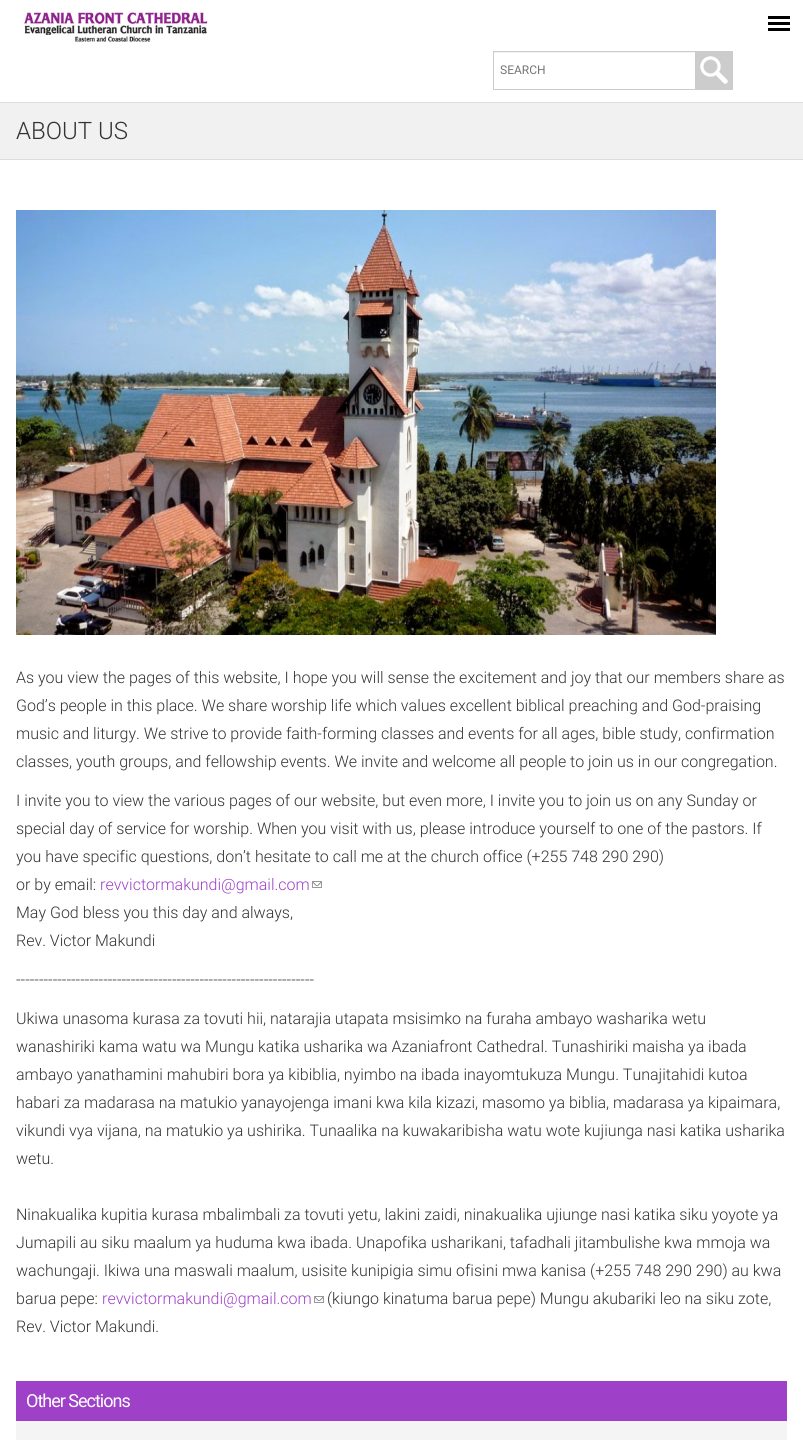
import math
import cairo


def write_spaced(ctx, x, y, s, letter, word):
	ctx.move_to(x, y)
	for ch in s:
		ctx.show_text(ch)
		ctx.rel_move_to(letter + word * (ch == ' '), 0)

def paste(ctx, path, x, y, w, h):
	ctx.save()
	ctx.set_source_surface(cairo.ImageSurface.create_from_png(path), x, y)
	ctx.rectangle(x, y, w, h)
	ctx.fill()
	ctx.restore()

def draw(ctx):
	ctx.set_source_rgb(1, 1, 1)
	ctx.paint()
	paste(ctx, 'media/1.png', 24, 12, 184, 30)
	ctx.set_source_rgb(0, 0, 0)
	ctx.rectangle(768, 16, 22, 3)
	ctx.rectangle(768, 22, 22, 3)
	ctx.rectangle(768, 28, 22, 3)
	ctx.fill()
	ctx.set_source_rgb(0.949, 0.949, 0.949)
	ctx.rectangle(494, 52, 201, 1)
	ctx.fill()
	ctx.rectangle(493.5, 51.5, 239, 38)
	ctx.set_source_rgb(0.8, 0.8, 0.8)
	ctx.set_line_width(1)
	ctx.stroke()
	ctx.select_font_face('Roboto')
	ctx.set_font_size(12)
	ctx.set_source_rgb(0.459, 0.459, 0.459)
	ctx.move_to(500, 74)
	ctx.show_text('SEARCH')
	ctx.set_source_rgb(0.8, 0.8, 0.8)
	ctx.rectangle(695, 52, 37, 37)
	ctx.fill()
	paste(ctx, 'media/2.png', 700, 56, 28, 28)
	ctx.set_source_rgb(0.945, 0.945, 0.945)
	ctx.rectangle(0, 103, 803, 56)
	ctx.fill()
	ctx.set_source_rgb(0.867, 0.867, 0.867)
	ctx.rectangle(0, 102, 803, 1)
	ctx.rectangle(0, 159, 803, 1)
	ctx.fill()
	ctx.select_font_face('Roboto Light')
	ctx.set_font_size(24)
	ctx.set_source_rgb(0.2, 0.2, 0.2)
	ctx.move_to(16, 139)
	ctx.show_text('ABOUT US')
	paste(ctx, 'media/3.png', 16, 210, 700, 425)
	ctx.set_font_size(16)
	for x, y, s in [
		(16, 683, 'As you view the pages of this website, I hope you will sense the excitement and joy that our members share as'),
		(16, 711, 'God’s people in this place. We share worship life which values excellent biblical preaching and God-praising'),
		(16, 739, 'music and liturgy. We strive to provide faith-forming classes and events for all ages, bible study, confirmation'),
		(16, 767, 'classes, youth groups, and fellowship events. We invite and welcome all people to join us in our congregation.'),
		(16, 806, 'I invite you to view the various pages of our website, but even more, I invite you to join us on any Sunday or'),
		(16, 834, 'special day of service for worship. When you visit with us, please introduce yourself to one of the pastors. If'),
		(16, 862, 'you have specific questions, don’t hesitate to call me at the church office (+255 748 290 290)'),
		(16, 890, 'or by email:'),
	]:
		ctx.move_to(x, y)
		ctx.show_text(s)
	ctx.set_source_rgb(0.62, 0.251, 0.784)
	ctx.move_to(100, 890)
	ctx.show_text('revvictormakundi@gmail.com')
	paste(ctx, 'media/4.png', 312, 881, 10, 7)
	ctx.set_source_rgb(0.2, 0.2, 0.2)
	for x, y, s in [
		(16, 918, 'May God bless you this day and always,'),
		(16, 946, 'Rev. Victor Makundi'),
		(16, 985, '-----------------------------------------------------------------'),
		(16, 1024, 'Ukiwa unasoma kurasa za tovuti hii, natarajia utapata msisimko na furaha ambayo washarika wetu'),
		(16, 1052, 'wanashiriki kama watu wa Mungu katika usharika wa Azaniafront Cathedral. Tunashiriki maisha ya ibada'),
		(16, 1080, 'ambayo yanathamini mahubiri bora ya kibiblia, nyimbo na ibada inayomtukuza Mungu. Tunajitahidi kutoa'),
		(16, 1108, 'habari za madarasa na matukio yanayojenga imani kwa kila kizazi, masomo ya biblia, madarasa ya kipaimara,'),
		(16, 1136, 'vikundi vya vijana, na matukio ya ushirika. Tunaalika na kuwakaribisha watu wote kujiunga nasi katika usharika'),
		(16, 1164, 'wetu.'),
		(16, 1220, 'Ninakualika kupitia kurasa mbalimbali za tovuti yetu, lakini zaidi, ninakualika ujiunge nasi katika siku yoyote ya'),
		(16, 1248, 'Jumapili au siku maalum ya huduma kwa ibada. Unapofika usharikani, tafadhali jitambulishe kwa mmoja wa'),
		(16, 1276, 'wachungaji. Ikiwa una maswali maalum, usisite kunipigia simu ofisini mwa kanisa (+255 748 290 290) au kwa'),
		(16, 1304, 'barua pepe:'),
	]:
		ctx.move_to(x, y)
		ctx.show_text(s)
	ctx.set_source_rgb(0.62, 0.251, 0.784)
	ctx.move_to(102, 1304)
	ctx.show_text('revvictormakundi@gmail.com')
	paste(ctx, 'media/4.png', 314, 1296, 10, 7)
	ctx.set_source_rgb(0.2, 0.2, 0.2)
	ctx.move_to(327, 1304)
	ctx.show_text('(kiungo kinatuma barua pepe) Mungu akubariki leo na siku zote,')
	ctx.move_to(16, 1332)
	ctx.show_text('Rev. Victor Makundi.')
	ctx.set_source_rgb(0.62, 0.251, 0.784)
	ctx.rectangle(16, 1381, 771, 40)
	ctx.fill()
	ctx.select_font_face('Roboto')
	ctx.set_font_size(18)
	ctx.set_source_rgb(1, 1, 1)
	write_spaced(ctx, 26, 1407, 'Other Sections', -1, 0)
	ctx.set_source_rgb(0.957, 0.957, 0.957)
	ctx.rectangle(16, 1421, 771, 19)
	ctx.fill()


surface = cairo.ImageSurface(cairo.FORMAT_RGB24, 803, 1440)
ctx = cairo.Context(surface)
options = cairo.FontOptions()
options.set_hint_metrics(cairo.HINT_METRICS_OFF)
options.set_hint_style(cairo.HINT_STYLE_NONE)
ctx.set_font_options(options)
ctx.set_miter_limit(4)
draw(ctx)
surface.write_to_png('image.png')
